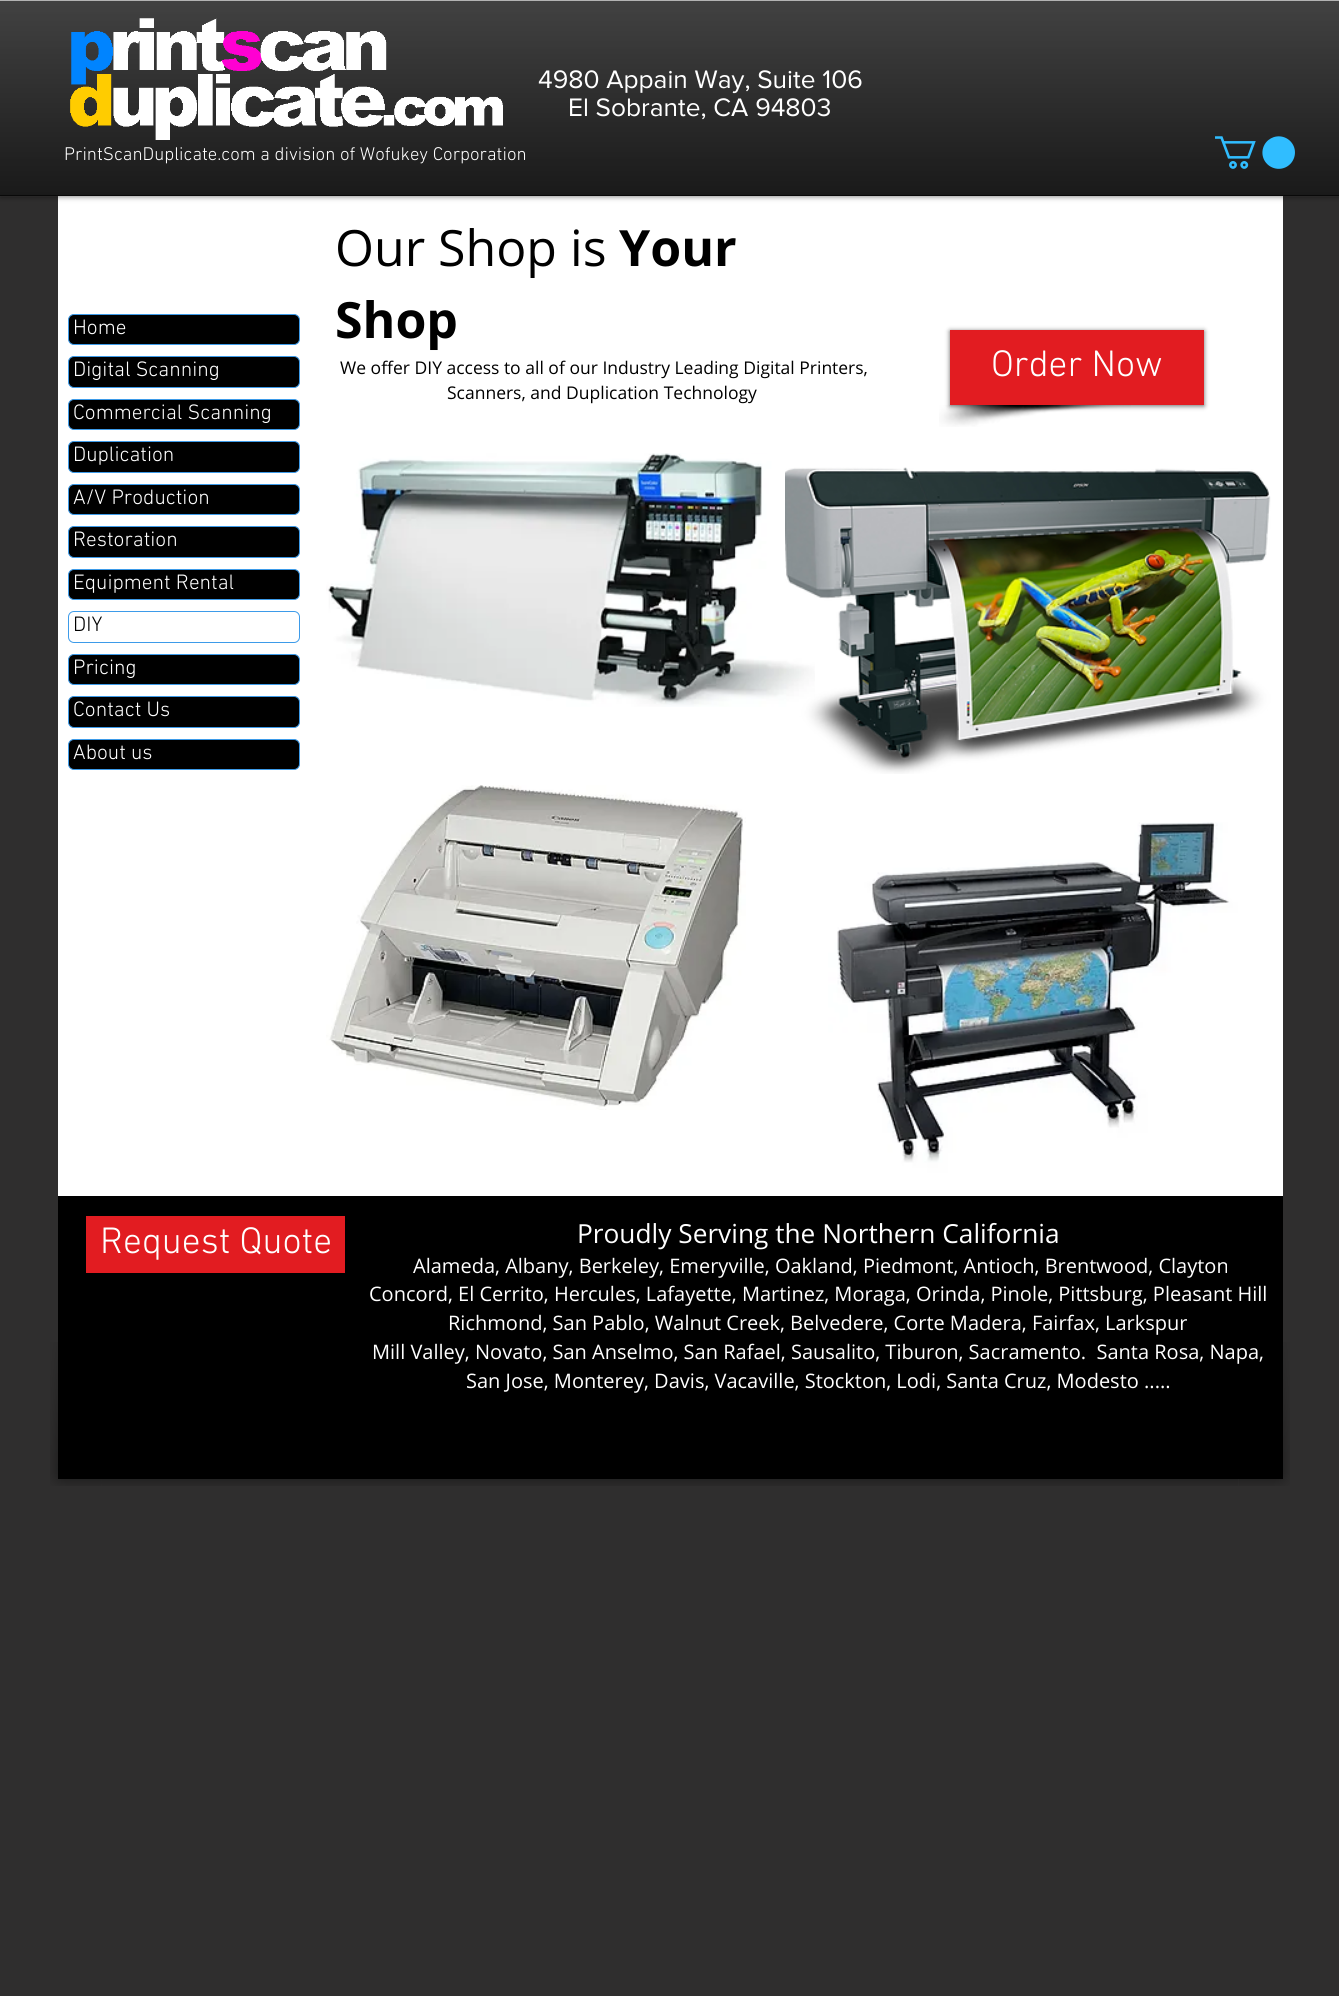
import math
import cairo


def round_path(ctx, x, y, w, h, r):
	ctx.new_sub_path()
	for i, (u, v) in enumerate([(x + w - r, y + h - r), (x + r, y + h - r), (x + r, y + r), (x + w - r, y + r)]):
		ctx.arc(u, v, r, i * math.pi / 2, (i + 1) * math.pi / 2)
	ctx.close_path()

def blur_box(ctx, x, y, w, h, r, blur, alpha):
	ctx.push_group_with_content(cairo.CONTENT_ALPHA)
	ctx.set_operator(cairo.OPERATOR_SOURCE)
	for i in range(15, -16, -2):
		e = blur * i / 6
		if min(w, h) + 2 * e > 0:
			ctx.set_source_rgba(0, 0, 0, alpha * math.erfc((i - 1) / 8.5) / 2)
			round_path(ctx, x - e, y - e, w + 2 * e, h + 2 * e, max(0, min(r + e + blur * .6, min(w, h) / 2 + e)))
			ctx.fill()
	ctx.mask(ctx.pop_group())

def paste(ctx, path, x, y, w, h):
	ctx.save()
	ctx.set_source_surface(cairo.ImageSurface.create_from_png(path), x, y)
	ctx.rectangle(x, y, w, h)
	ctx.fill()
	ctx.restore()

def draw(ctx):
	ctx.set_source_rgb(0.184, 0.18, 0.18)
	ctx.paint()
	ctx.set_source_rgb(1, 1, 1)
	ctx.rectangle(58, 196, 1225, 1000)
	ctx.fill()
	ctx.set_source_rgb(0, 0, 0)
	blur_box(ctx, 0, 0, 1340, 196, 0, 3, 0.6)
	ctx.set_source_rgb(0, 0, 0)
	ctx.rectangle(0, 1, 1339, 194)
	ctx.fill()
	paste(ctx, 'media/1.png', 0, 1, 1339, 196)
	ctx.set_source_rgb(0.039, 0.039, 0.039)
	ctx.rectangle(0, 195, 1339, 1)
	ctx.fill()
	ctx.set_source_rgb(0.702, 0.702, 0.702)
	ctx.rectangle(0, 0, 1339, 1)
	ctx.fill()
	paste(ctx, 'media/2.png', 70, 18, 433, 122)
	ctx.select_font_face('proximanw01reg')
	ctx.set_font_size(26.25)
	ctx.set_source_rgb(1, 1, 1)
	ctx.move_to(538, 88)
	ctx.show_text('4980 Appain Way, Suite 106')
	ctx.move_to(568, 116)
	ctx.show_text('El Sobrante, CA 94803')
	ctx.select_font_face('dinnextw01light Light')
	ctx.set_font_size(18.75)
	ctx.move_to(64, 160)
	ctx.show_text('PrintScanDuplicate.com a division of Wofukey Corporation')
	paste(ctx, 'media/3.png', 1215, 136, 80, 33)
	ctx.set_source_rgb(0, 0, 0)
	round_path(ctx, 68.5, 314.5, 231, 30, 5.5)
	ctx.fill_preserve()
	ctx.set_source_rgb(0.239, 0.608, 0.914)
	ctx.set_line_width(1)
	ctx.stroke()
	ctx.set_font_size(21.25)
	ctx.set_source_rgb(1, 1, 1)
	ctx.move_to(73, 334)
	ctx.show_text('Home')
	ctx.set_source_rgb(0, 0, 0)
	round_path(ctx, 68.5, 356.5, 231, 31, 5.5)
	ctx.fill_preserve()
	ctx.set_source_rgb(0.239, 0.608, 0.914)
	ctx.stroke()
	ctx.set_source_rgb(1, 1, 1)
	ctx.move_to(73, 376)
	ctx.show_text('Digital Scanning')
	ctx.set_source_rgb(0, 0, 0)
	round_path(ctx, 68.5, 399.5, 231, 30, 5.5)
	ctx.fill_preserve()
	ctx.set_source_rgb(0.239, 0.608, 0.914)
	ctx.stroke()
	ctx.set_source_rgb(1, 1, 1)
	ctx.move_to(73, 419)
	ctx.show_text('Commercial Scanning')
	ctx.set_source_rgb(0, 0, 0)
	round_path(ctx, 68.5, 441.5, 231, 31, 5.5)
	ctx.fill_preserve()
	ctx.set_source_rgb(0.239, 0.608, 0.914)
	ctx.stroke()
	ctx.set_source_rgb(1, 1, 1)
	ctx.move_to(73, 461)
	ctx.show_text('Duplication')
	ctx.set_source_rgb(0, 0, 0)
	round_path(ctx, 68.5, 484.5, 231, 30, 5.5)
	ctx.fill_preserve()
	ctx.set_source_rgb(0.239, 0.608, 0.914)
	ctx.stroke()
	ctx.set_source_rgb(1, 1, 1)
	ctx.move_to(73, 504)
	ctx.show_text('A/V Production')
	ctx.set_source_rgb(0, 0, 0)
	round_path(ctx, 68.5, 526.5, 231, 31, 5.5)
	ctx.fill_preserve()
	ctx.set_source_rgb(0.239, 0.608, 0.914)
	ctx.stroke()
	ctx.set_source_rgb(1, 1, 1)
	ctx.move_to(73, 546)
	ctx.show_text('Restoration')
	ctx.set_source_rgb(0, 0, 0)
	round_path(ctx, 68.5, 569.5, 231, 30, 5.5)
	ctx.fill_preserve()
	ctx.set_source_rgb(0.239, 0.608, 0.914)
	ctx.stroke()
	ctx.set_source_rgb(1, 1, 1)
	ctx.move_to(73, 589)
	ctx.show_text('Equipment Rental')
	round_path(ctx, 68.5, 611.5, 231, 31, 5.5)
	ctx.set_source_rgb(0.239, 0.608, 0.914)
	ctx.stroke()
	ctx.set_source_rgb(0, 0, 0)
	ctx.move_to(73, 631)
	ctx.show_text('DIY')
	round_path(ctx, 68.5, 654.5, 231, 30, 5.5)
	ctx.fill_preserve()
	ctx.set_source_rgb(0.239, 0.608, 0.914)
	ctx.stroke()
	ctx.set_source_rgb(1, 1, 1)
	ctx.move_to(73, 674)
	ctx.show_text('Pricing')
	ctx.set_source_rgb(0, 0, 0)
	round_path(ctx, 68.5, 696.5, 231, 31, 5.5)
	ctx.fill_preserve()
	ctx.set_source_rgb(0.239, 0.608, 0.914)
	ctx.stroke()
	ctx.set_source_rgb(1, 1, 1)
	ctx.move_to(73, 716)
	ctx.show_text('Contact Us')
	ctx.set_source_rgb(0, 0, 0)
	round_path(ctx, 68.5, 739.5, 231, 30, 5.5)
	ctx.fill_preserve()
	ctx.set_source_rgb(0.239, 0.608, 0.914)
	ctx.stroke()
	ctx.set_source_rgb(1, 1, 1)
	ctx.move_to(73, 759)
	ctx.show_text('About us')
	ctx.select_font_face('Open Sans')
	ctx.set_font_size(50)
	ctx.set_source_rgb(0, 0, 0)
	ctx.move_to(335, 266)
	ctx.show_text('Our Shop is')
	ctx.select_font_face('Open Sans', cairo.FONT_SLANT_NORMAL, cairo.FONT_WEIGHT_BOLD)
	ctx.move_to(619, 266)
	ctx.show_text('Your')
	ctx.move_to(335, 338)
	ctx.show_text('Shop')
	ctx.select_font_face('Open Sans')
	ctx.set_font_size(17.5)
	ctx.move_to(340, 374)
	ctx.show_text('We offer DIY access to all of our Industry Leading Digital Printers,')
	ctx.move_to(447, 399)
	ctx.show_text('Scanners, and Duplication Technology')
	paste(ctx, 'media/4.png', 939, 405, 192, 22)
	ctx.set_source_rgb(0, 0, 0)
	blur_box(ctx, 950, 331, 254, 75, 0, 2.5, 0.6)
	ctx.set_source_rgb(0.886, 0.11, 0.129)
	ctx.rectangle(950, 330, 254, 75)
	ctx.fill()
	ctx.select_font_face('dinnextw01light Light')
	ctx.set_font_size(37.5)
	ctx.set_source_rgb(1, 1, 1)
	ctx.move_to(991, 376)
	ctx.show_text('Order Now')
	paste(ctx, 'media/5.png', 326, 453, 489, 254)
	paste(ctx, 'media/6.png', 785, 467, 486, 307)
	paste(ctx, 'media/7.png', 326, 785, 420, 325)
	paste(ctx, 'media/8.png', 828, 822, 411, 374)
	paste(ctx, 'media/9.png', 50, 1342, 52, 144)
	paste(ctx, 'media/11.png', 1239, 1342, 51, 144)
	ctx.set_source_rgb(0, 0, 0)
	ctx.rectangle(58, 1196, 1225, 283)
	ctx.fill()
	paste(ctx, 'media/10.png', 101, 1479, 1138, 7)
	ctx.set_source_rgb(0.886, 0.11, 0.129)
	ctx.rectangle(86, 1216, 259, 57)
	ctx.fill()
	ctx.set_source_rgb(1, 1, 1)
	ctx.move_to(100, 1253)
	ctx.show_text('Request Quote')
	ctx.select_font_face('Open Sans')
	ctx.set_font_size(26.25)
	ctx.move_to(577, 1243)
	ctx.show_text('Proudly Serving the Northern California')
	ctx.set_font_size(20)
	for x, y, s in [
		(413, 1273, 'Alameda, Albany, Berkeley, Emeryville, Oakland, Piedmont, Antioch, Brentwood, Clayton'),
		(369, 1301, 'Concord, El Cerrito, Hercules, Lafayette, Martinez, Moraga, Orinda, Pinole, Pittsburg, Pleasant Hill'),
		(448, 1330, 'Richmond, San Pablo, Walnut Creek, Belvedere, Corte Madera, Fairfax, Larkspur'),
		(372, 1359, 'Mill Valley, Novato, San Anselmo, San Rafael, Sausalito, Tiburon, Sacramento.  Santa Rosa, Napa,'),
		(466, 1388, 'San Jose, Monterey, Davis, Vacaville, Stockton, Lodi, Santa Cruz, Modesto .....'),
	]:
		ctx.move_to(x, y)
		ctx.show_text(s)


surface = cairo.ImageSurface(cairo.FORMAT_RGB24, 1339, 1996)
ctx = cairo.Context(surface)
options = cairo.FontOptions()
options.set_hint_metrics(cairo.HINT_METRICS_OFF)
options.set_hint_style(cairo.HINT_STYLE_NONE)
ctx.set_font_options(options)
ctx.set_miter_limit(4)
draw(ctx)
surface.write_to_png('image.png')
